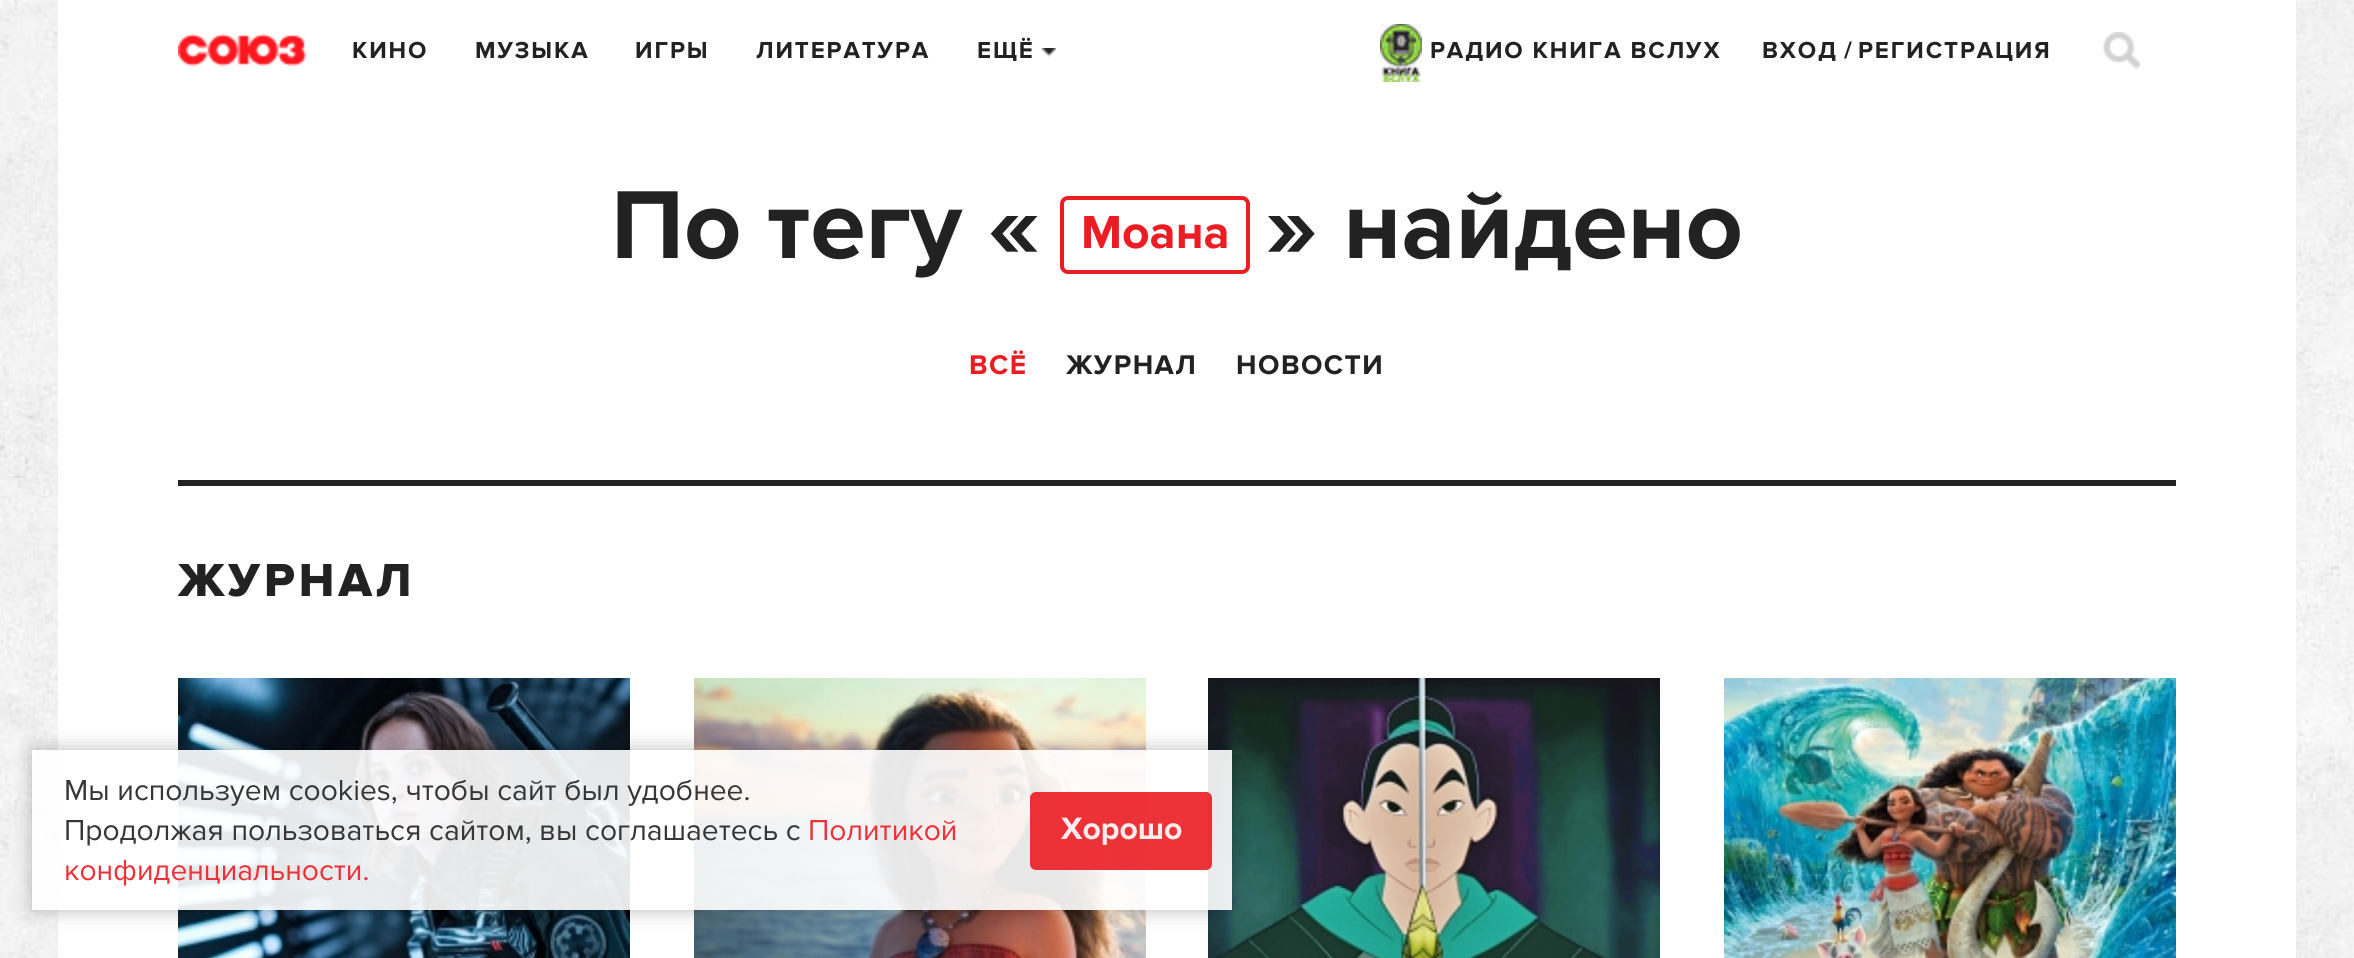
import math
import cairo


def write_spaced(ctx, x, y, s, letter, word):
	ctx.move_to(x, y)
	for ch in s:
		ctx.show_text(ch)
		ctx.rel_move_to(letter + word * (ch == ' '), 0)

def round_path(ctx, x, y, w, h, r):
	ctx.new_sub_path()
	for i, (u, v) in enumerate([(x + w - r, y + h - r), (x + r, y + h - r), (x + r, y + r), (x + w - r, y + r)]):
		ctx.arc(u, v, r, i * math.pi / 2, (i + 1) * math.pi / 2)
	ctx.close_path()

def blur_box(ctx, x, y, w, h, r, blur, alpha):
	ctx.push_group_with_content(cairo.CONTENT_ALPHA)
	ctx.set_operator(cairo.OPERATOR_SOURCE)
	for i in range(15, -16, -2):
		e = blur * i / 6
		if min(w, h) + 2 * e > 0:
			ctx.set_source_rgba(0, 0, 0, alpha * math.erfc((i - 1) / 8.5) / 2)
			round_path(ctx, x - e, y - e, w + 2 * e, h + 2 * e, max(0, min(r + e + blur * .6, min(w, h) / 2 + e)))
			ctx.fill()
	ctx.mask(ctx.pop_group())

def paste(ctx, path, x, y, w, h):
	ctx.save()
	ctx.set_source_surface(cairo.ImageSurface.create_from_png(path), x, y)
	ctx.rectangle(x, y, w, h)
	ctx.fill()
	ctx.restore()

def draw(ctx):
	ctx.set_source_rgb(1, 1, 1)
	ctx.paint()
	paste(ctx, 'media/1.png', 0, 0, 2354, 958)
	ctx.set_source_rgb(1, 1, 1)
	ctx.rectangle(58, 0, 2238, 958)
	ctx.fill()
	paste(ctx, 'media/2.png', 178, 34, 128, 32)
	ctx.select_font_face('Proxima Nova', cairo.FONT_SLANT_NORMAL, cairo.FONT_WEIGHT_BOLD)
	ctx.set_font_size(24)
	ctx.set_source_rgb(0.133, 0.133, 0.133)
	for x, y, s in [
		(352, 58, 'КИНО'),
		(475, 58, 'МУЗЫКА'),
		(635, 58, 'ИГРЫ'),
		(756, 58, 'ЛИТЕРАТУРА'),
		(977, 58, 'ЕЩЁ'),
	]:
		write_spaced(ctx, x, y, s, 1.9, 0)
	paste(ctx, 'media/3.png', 1042, 48, 14, 9)
	paste(ctx, 'media/4.png', 1380, 24, 42, 58)
	write_spaced(ctx, 1430, 58, 'РАДИО КНИГА ВСЛУХ', 1.9, 0)
	write_spaced(ctx, 1762, 58, 'ВХОД', 1.9, 0)
	ctx.move_to(1844, 58)
	ctx.show_text('/')
	write_spaced(ctx, 1858, 58, 'РЕГИСТРАЦИЯ', 1.9, 0)
	paste(ctx, 'media/5.png', 2103, 32, 38, 37)
	ctx.set_font_size(100)
	ctx.move_to(611, 258)
	ctx.show_text('По тегу «')
	round_path(ctx, 1062, 198, 186, 74, 6)
	ctx.set_source_rgb(0.922, 0.11, 0.137)
	ctx.set_line_width(4)
	ctx.stroke()
	ctx.set_font_size(48)
	ctx.move_to(1081, 248)
	ctx.show_text('Моана')
	ctx.set_font_size(100)
	ctx.set_source_rgb(0.133, 0.133, 0.133)
	ctx.move_to(1265, 258)
	ctx.show_text('» найдено')
	ctx.set_font_size(28)
	ctx.set_source_rgb(0.922, 0.11, 0.137)
	write_spaced(ctx, 969, 374, 'ВСЁ', 1.5, 0)
	ctx.set_source_rgb(0.133, 0.133, 0.133)
	write_spaced(ctx, 1066, 374, 'ЖУРНАЛ', 1.5, 0)
	write_spaced(ctx, 1236, 374, 'НОВОСТИ', 1.5, 0)
	ctx.rectangle(178, 480, 1998, 6)
	ctx.fill()
	ctx.select_font_face('Proxima Nova ExtraBold')
	ctx.set_font_size(48)
	write_spaced(ctx, 178, 596, 'ЖУРНАЛ', 4, 0)
	paste(ctx, 'media/6.png', 178, 678, 452, 280)
	paste(ctx, 'media/7.png', 694, 678, 452, 280)
	paste(ctx, 'media/8.png', 1208, 678, 452, 280)
	paste(ctx, 'media/9.png', 1724, 678, 452, 280)
	ctx.save()
	ctx.set_fill_rule(cairo.FILL_RULE_EVEN_ODD)
	ctx.new_path()
	ctx.move_to(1, 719)
	ctx.line_to(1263, 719)
	ctx.line_to(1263, 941)
	ctx.line_to(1, 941)
	ctx.close_path()
	ctx.move_to(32, 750)
	ctx.line_to(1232, 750)
	ctx.line_to(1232, 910)
	ctx.line_to(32, 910)
	ctx.close_path()
	ctx.clip()
	ctx.set_source_rgb(0, 0, 0)
	blur_box(ctx, 32, 750, 1200, 160, 0, 10, 0.27)
	ctx.restore()
	ctx.set_source_rgba(1, 1, 1, 0.9)
	ctx.rectangle(32, 750, 1200, 160)
	ctx.fill()
	ctx.select_font_face('Proxima Nova')
	ctx.set_font_size(30)
	ctx.set_source_rgb(0.216, 0.216, 0.216)
	ctx.move_to(64, 800)
	ctx.show_text('Мы используем cookies, чтобы сайт был удобнее.')
	ctx.move_to(64, 840)
	ctx.show_text('Продолжая пользоваться сайтом, вы соглашаетесь с')
	ctx.set_source_rgb(0.925, 0.192, 0.22)
	ctx.move_to(808, 840)
	ctx.show_text('Политикой')
	ctx.move_to(64, 880)
	ctx.show_text('конфиденциальности.')
	ctx.set_source_rgba(0.922, 0.11, 0.137, 0.9)
	round_path(ctx, 1030, 792, 182, 78, 6)
	ctx.fill()
	ctx.select_font_face('Proxima Nova', cairo.FONT_SLANT_NORMAL, cairo.FONT_WEIGHT_BOLD)
	ctx.set_font_size(32)
	ctx.set_source_rgb(0.992, 0.922, 0.922)
	ctx.move_to(1061, 839)
	ctx.show_text('Хорошо')


surface = cairo.ImageSurface(cairo.FORMAT_RGB24, 2354, 958)
ctx = cairo.Context(surface)
options = cairo.FontOptions()
options.set_hint_metrics(cairo.HINT_METRICS_OFF)
options.set_hint_style(cairo.HINT_STYLE_NONE)
ctx.set_font_options(options)
ctx.set_miter_limit(4)
draw(ctx)
surface.write_to_png('image.png')
